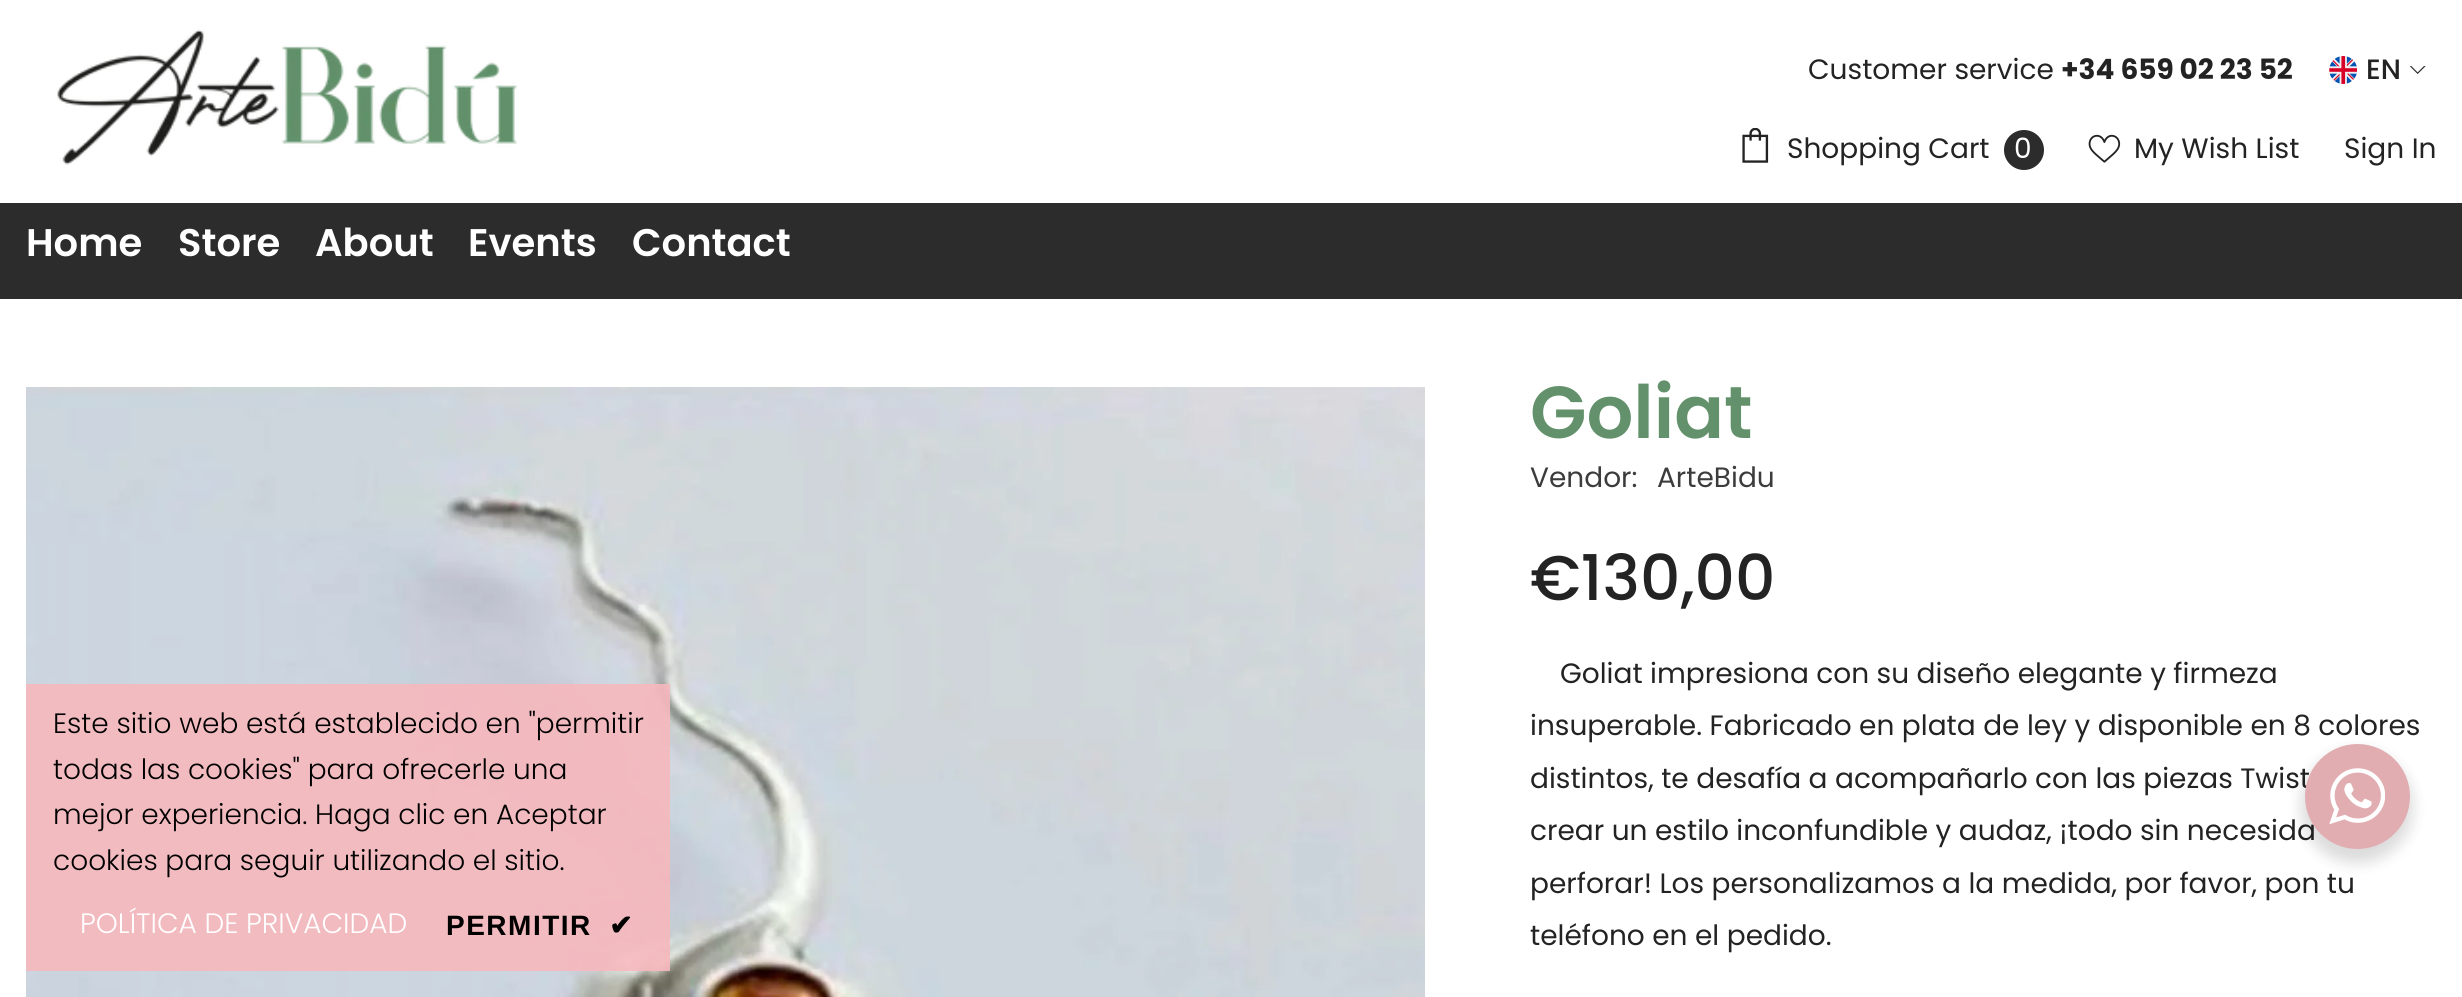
import math
import cairo


def write_spaced(ctx, x, y, s, letter, word):
	ctx.move_to(x, y)
	for ch in s:
		ctx.show_text(ch)
		ctx.rel_move_to(letter + word * (ch == ' '), 0)

def round_path(ctx, x, y, w, h, r):
	ctx.new_sub_path()
	for i, (u, v) in enumerate([(x + w - r, y + h - r), (x + r, y + h - r), (x + r, y + r), (x + w - r, y + r)]):
		ctx.arc(u, v, r, i * math.pi / 2, (i + 1) * math.pi / 2)
	ctx.close_path()

def blur_box(ctx, x, y, w, h, r, blur, alpha):
	ctx.push_group_with_content(cairo.CONTENT_ALPHA)
	ctx.set_operator(cairo.OPERATOR_SOURCE)
	for i in range(15, -16, -2):
		e = blur * i / 6
		if min(w, h) + 2 * e > 0:
			ctx.set_source_rgba(0, 0, 0, alpha * math.erfc((i - 1) / 8.5) / 2)
			round_path(ctx, x - e, y - e, w + 2 * e, h + 2 * e, max(0, min(r + e + blur * .6, min(w, h) / 2 + e)))
			ctx.fill()
	ctx.mask(ctx.pop_group())

def paste(ctx, path, x, y, w, h):
	ctx.save()
	ctx.set_source_surface(cairo.ImageSurface.create_from_png(path), x, y)
	ctx.rectangle(x, y, w, h)
	ctx.fill()
	ctx.restore()

def draw(ctx):
	ctx.set_source_rgb(1, 1, 1)
	ctx.paint()
	paste(ctx, 'media/1.png', 57, 29, 460, 136)
	ctx.select_font_face('Poppins')
	ctx.set_font_size(28)
	ctx.set_source_rgb(0.137, 0.137, 0.137)
	ctx.move_to(1808, 79)
	ctx.show_text('Customer service')
	ctx.select_font_face('Poppins', cairo.FONT_SLANT_NORMAL, cairo.FONT_WEIGHT_BOLD)
	ctx.move_to(2061, 79)
	ctx.show_text('+34 659 02 23 52')
	paste(ctx, 'media/2.png', 2329, 56, 28, 28)
	ctx.select_font_face('Poppins Medium')
	ctx.move_to(2366, 79)
	ctx.show_text('EN')
	paste(ctx, 'media/3.png', 2410, 66, 16, 8)
	paste(ctx, 'media/4.png', 1742, 128, 27, 35)
	ctx.select_font_face('Poppins')
	ctx.move_to(1787, 158)
	ctx.show_text('Shopping Cart')
	ctx.set_source_rgb(0.173, 0.173, 0.173)
	ctx.new_path()
	ctx.arc(2024, 150, 20, 0, 2 * math.pi)
	ctx.fill()
	ctx.set_source_rgb(1, 1, 1)
	ctx.move_to(2014, 158)
	ctx.show_text('0')
	paste(ctx, 'media/5.png', 2088, 134, 33, 29)
	ctx.set_source_rgb(0.137, 0.137, 0.137)
	ctx.move_to(2134, 158)
	ctx.show_text('My Wish List')
	ctx.move_to(2344, 158)
	ctx.show_text('Sign In')
	ctx.set_source_rgb(0.173, 0.173, 0.173)
	ctx.rectangle(0, 203, 2462, 96)
	ctx.fill()
	ctx.select_font_face('Poppins SemiBold')
	ctx.set_font_size(38.5)
	ctx.set_source_rgb(1, 1, 1)
	for x, y, s in [
		(26, 256, 'Home'),
		(178, 256, 'Store'),
		(315, 256, 'About'),
		(468, 256, 'Events'),
		(632, 256, 'Contact'),
	]:
		ctx.move_to(x, y)
		ctx.show_text(s)
	paste(ctx, 'media/6.png', 26, 387, 1399, 610)
	ctx.set_font_size(73.5)
	ctx.set_source_rgb(0.384, 0.569, 0.42)
	ctx.move_to(1530, 438)
	ctx.show_text('Goliat')
	ctx.select_font_face('Poppins')
	ctx.set_font_size(28)
	ctx.set_source_rgb(0.235, 0.235, 0.235)
	ctx.move_to(1530, 487)
	ctx.show_text('Vendor:')
	ctx.move_to(1657, 487)
	ctx.show_text('ArteBidu')
	ctx.select_font_face('Poppins Medium')
	ctx.set_font_size(63)
	ctx.set_source_rgb(0.137, 0.137, 0.137)
	ctx.move_to(1530, 600)
	ctx.show_text('€130,00')
	ctx.select_font_face('Poppins')
	ctx.set_font_size(28)
	for x, y, s in [
		(1560, 683, 'Goliat impresiona con su diseño elegante y firmeza'),
		(1530, 735, 'insuperable. Fabricado en plata de ley y disponible en 8 colores'),
		(1530, 788, 'distintos, te desafía a acompañarlo con las piezas Twist'),
		(1530, 840, 'crear un estilo inconfundible y audaz, ¡todo sin necesida'),
		(1530, 893, 'perforar! Los personalizamos a la medida, por favor, pon tu'),
		(1530, 945, 'teléfono en el pedido.'),
	]:
		ctx.move_to(x, y)
		ctx.show_text(s)
	ctx.set_source_rgba(0.965, 0.722, 0.741, 0.9)
	ctx.rectangle(26, 684, 644, 287)
	ctx.fill()
	ctx.select_font_face('Poppins Light')
	ctx.set_source_rgb(0, 0, 0)
	for x, y, s in [
		(53, 733, 'Este sitio web está establecido en "permitir'),
		(53, 779, 'todas las cookies" para ofrecerle una'),
		(53, 824, 'mejor experiencia. Haga clic en Aceptar'),
		(53, 870, 'cookies para seguir utilizando el sitio.'),
	]:
		ctx.move_to(x, y)
		ctx.show_text(s)
	ctx.set_source_rgb(1, 1, 1)
	ctx.move_to(80, 933)
	ctx.show_text('POLÍTICA DE PRIVACIDAD')
	ctx.select_font_face('Liberation Sans', cairo.FONT_SLANT_NORMAL, cairo.FONT_WEIGHT_BOLD)
	ctx.set_source_rgb(0, 0, 0)
	write_spaced(ctx, 446, 935, 'PERMITIR', 1.5, 0)
	ctx.select_font_face('DejaVu Sans', cairo.FONT_SLANT_NORMAL, cairo.FONT_WEIGHT_BOLD)
	write_spaced(ctx, 609, 935, '✔', 1.5, 0)
	ctx.set_source_rgb(0, 0, 0)
	blur_box(ctx, 2301, 751, 112, 112, 56, 7, 0.14)
	ctx.set_source_rgb(0.882, 0.678, 0.694)
	ctx.arc(2357.5, 796.5, 52.5, 0, 2 * math.pi)
	ctx.fill()
	paste(ctx, 'media/7.png', 2329, 768, 56, 56)


surface = cairo.ImageSurface(cairo.FORMAT_RGB24, 2462, 997)
ctx = cairo.Context(surface)
options = cairo.FontOptions()
options.set_hint_metrics(cairo.HINT_METRICS_OFF)
options.set_hint_style(cairo.HINT_STYLE_NONE)
ctx.set_font_options(options)
ctx.set_miter_limit(4)
draw(ctx)
surface.write_to_png('image.png')
